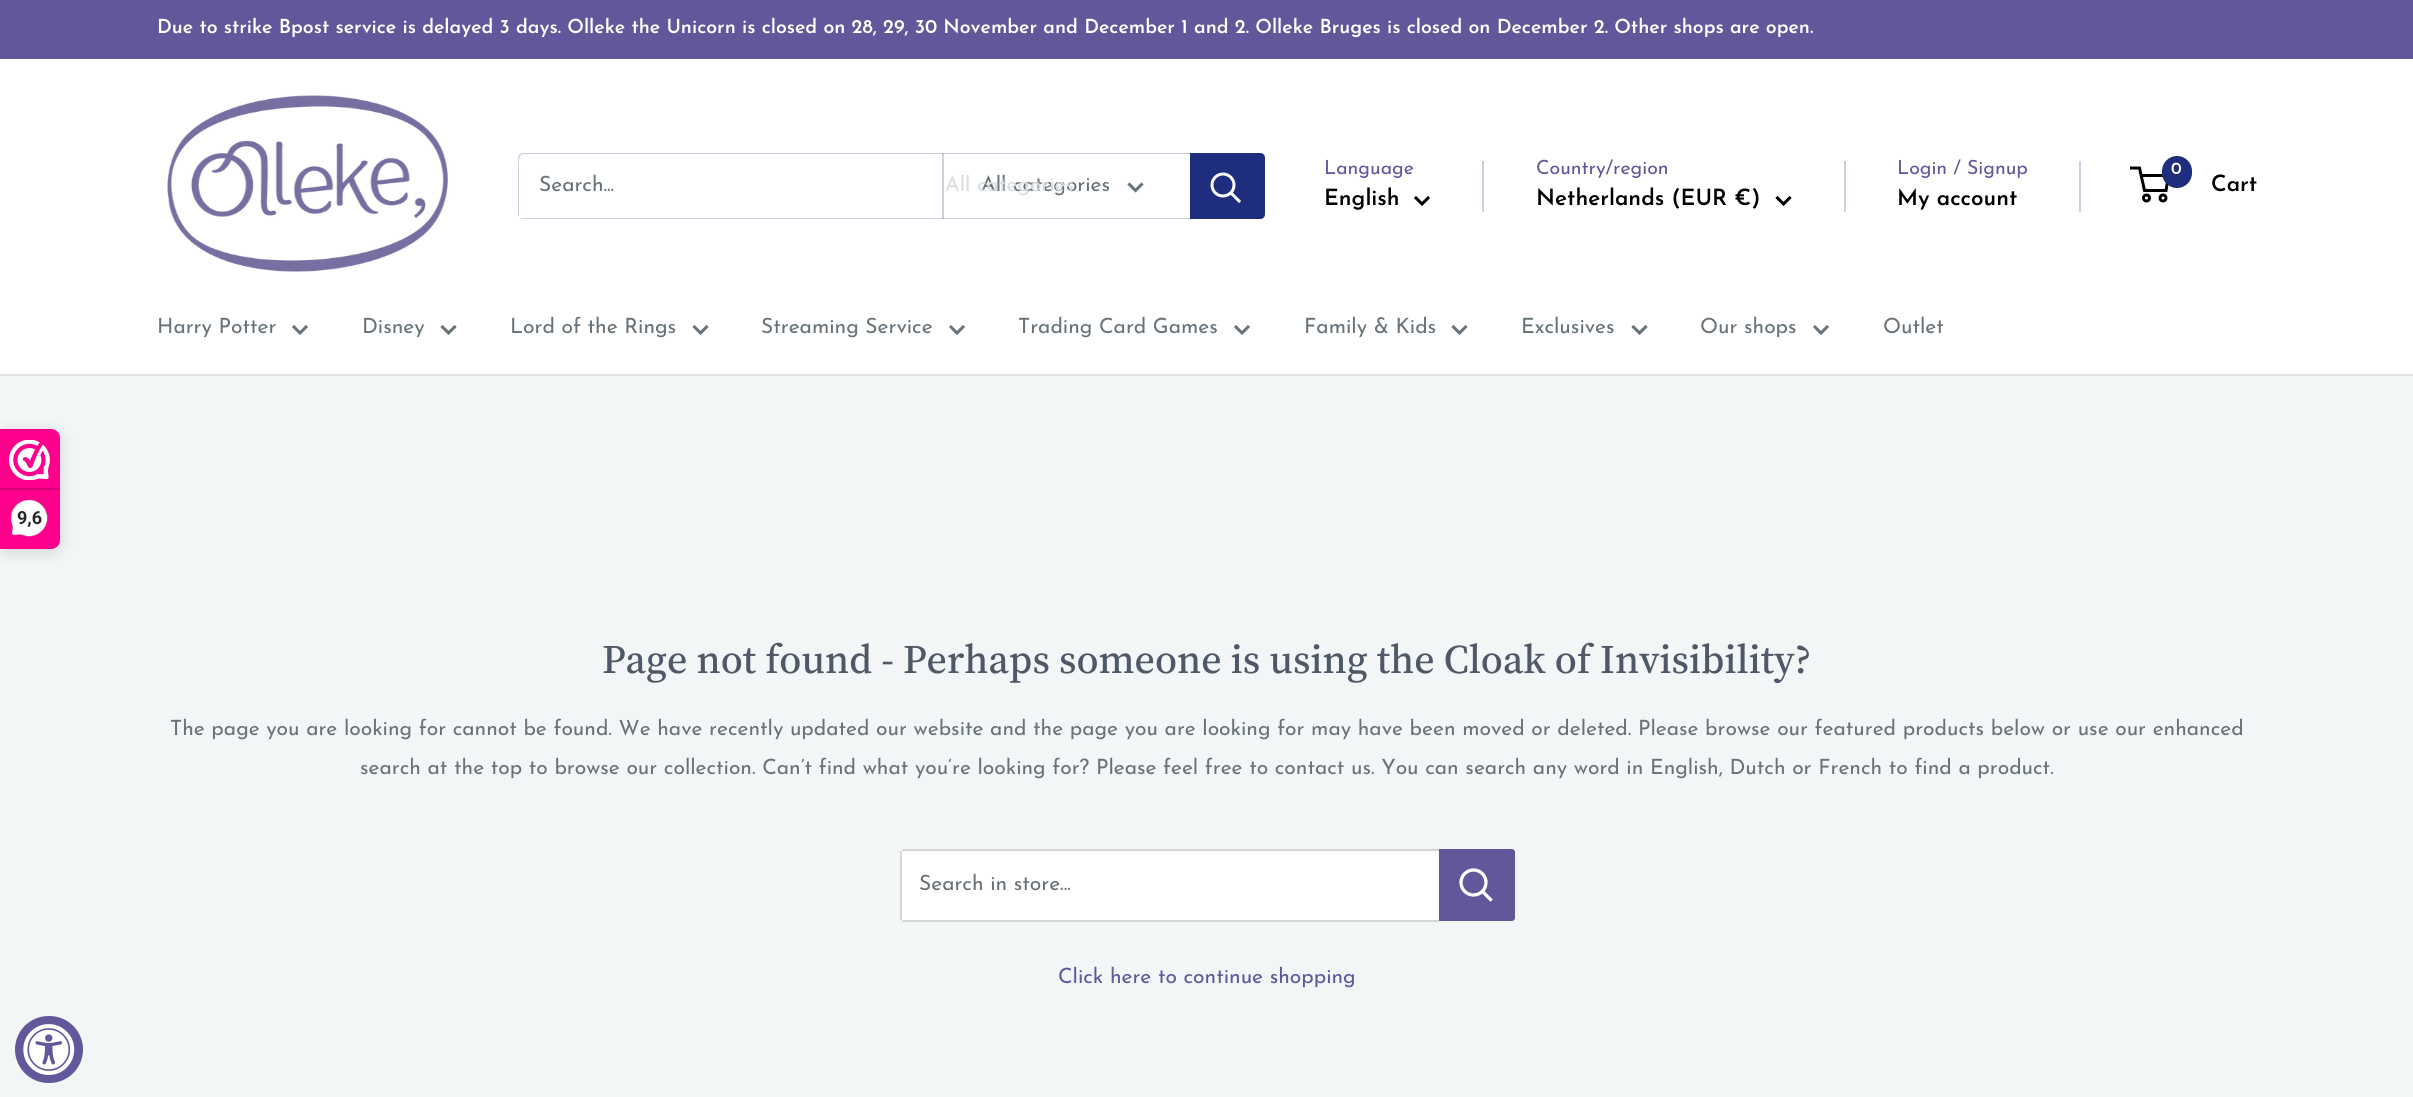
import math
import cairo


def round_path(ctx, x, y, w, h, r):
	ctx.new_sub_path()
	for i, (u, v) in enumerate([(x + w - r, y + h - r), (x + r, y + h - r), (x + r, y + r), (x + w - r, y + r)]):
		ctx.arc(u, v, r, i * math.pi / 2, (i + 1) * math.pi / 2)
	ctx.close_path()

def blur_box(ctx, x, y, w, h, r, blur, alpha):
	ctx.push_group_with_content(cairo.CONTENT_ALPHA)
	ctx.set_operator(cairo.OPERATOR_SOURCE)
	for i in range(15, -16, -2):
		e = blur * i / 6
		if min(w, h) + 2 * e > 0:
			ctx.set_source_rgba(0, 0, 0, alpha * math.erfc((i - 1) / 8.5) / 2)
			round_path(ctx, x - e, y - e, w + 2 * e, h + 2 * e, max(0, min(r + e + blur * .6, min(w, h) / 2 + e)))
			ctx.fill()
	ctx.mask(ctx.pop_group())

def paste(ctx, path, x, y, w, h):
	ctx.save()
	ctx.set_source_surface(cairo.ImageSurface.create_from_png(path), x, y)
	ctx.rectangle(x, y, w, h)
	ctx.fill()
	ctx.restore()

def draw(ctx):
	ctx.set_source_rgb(0.953, 0.961, 0.965)
	ctx.paint()
	ctx.set_source_rgb(0.384, 0.341, 0.604)
	ctx.rectangle(0, 0, 2413, 59)
	ctx.fill()
	ctx.select_font_face('Josefin Sans SemiBold')
	ctx.set_font_size(19.5)
	ctx.set_source_rgb(1, 1, 1)
	ctx.move_to(157, 33)
	ctx.show_text('Due to strike Bpost service is delayed 3 days. Olleke the Unicorn is closed on 28, 29, 30 November and December 1 and 2. Olleke Bruges is closed on December 2. Other shops are open.')
	ctx.rectangle(0, 59, 2413, 315)
	ctx.fill()
	paste(ctx, 'media/1.png', 167, 95, 282, 177)
	ctx.set_source_rgb(0.816, 0.804, 0.882)
	ctx.new_path()
	ctx.move_to(520, 218)
	ctx.curve_to(521, 219, 522, 219, 523, 219)
	ctx.line_to(1260, 219)
	ctx.curve_to(1263, 219, 1265, 217, 1265, 214)
	ctx.line_to(1265, 158)
	ctx.curve_to(1265, 156, 1264, 154, 1262, 153)
	ctx.curve_to(1263, 154, 1263, 155, 1263, 156)
	ctx.line_to(1263, 213)
	ctx.curve_to(1263, 215, 1261, 218, 1258, 218)
	ctx.close_path()
	ctx.fill()
	ctx.new_path()
	ctx.move_to(524, 154)
	ctx.line_to(1262, 154)
	ctx.line_to(1264, 155)
	ctx.curve_to(1263, 154, 1262, 153, 1260, 153)
	ctx.line_to(523, 153)
	ctx.curve_to(520, 153, 518, 155, 518, 158)
	ctx.line_to(518, 214)
	ctx.curve_to(518, 215, 518, 216, 519, 217)
	ctx.line_to(519, 168)
	ctx.curve_to(519, 165, 517, 154, 524, 154)
	ctx.close_path()
	ctx.fill()
	ctx.select_font_face('Josefin Sans')
	ctx.set_font_size(21)
	ctx.set_source_rgb(0.404, 0.447, 0.475)
	ctx.move_to(539, 191)
	ctx.show_text('Search...')
	ctx.set_source_rgba(0.384, 0.341, 0.604, 0.3)
	ctx.rectangle(942, 153, 2, 66)
	ctx.fill()
	ctx.set_source_rgb(0.404, 0.447, 0.475)
	ctx.move_to(981, 191)
	ctx.show_text('All categories')
	ctx.set_source_rgb(0.855, 0.863, 0.871)
	ctx.move_to(945, 191)
	ctx.show_text('All categories')
	ctx.new_path()
	ctx.move_to(1141.5, 184.5)
	ctx.line_to(1135.5, 190.5)
	ctx.line_to(1129.5, 184.5)
	ctx.set_source_rgb(0.404, 0.447, 0.475)
	ctx.set_line_width(3)
	ctx.set_line_cap(cairo.LINE_CAP_SQUARE)
	ctx.stroke()
	ctx.set_source_rgb(0.118, 0.176, 0.49)
	ctx.new_path()
	ctx.move_to(1190, 153)
	ctx.line_to(1260, 153)
	ctx.curve_to(1263, 153, 1265, 155, 1265, 158)
	ctx.line_to(1265, 214)
	ctx.curve_to(1265, 217, 1263, 219, 1260, 219)
	ctx.line_to(1190, 219)
	ctx.close_path()
	ctx.fill()
	ctx.new_path()
	ctx.move_to(1239, 201)
	ctx.line_to(1231.5, 193.5)
	ctx.set_source_rgb(1, 1, 1)
	ctx.stroke()
	ctx.arc(1223, 185, 11, 0, 2 * math.pi)
	ctx.set_line_cap(cairo.LINE_CAP_BUTT)
	ctx.stroke()
	ctx.set_font_size(19.5)
	ctx.set_source_rgb(0.384, 0.341, 0.604)
	ctx.move_to(1324, 174)
	ctx.show_text('Language')
	ctx.select_font_face('Josefin Sans SemiBold')
	ctx.set_font_size(22.5)
	ctx.set_source_rgb(0, 0, 0)
	ctx.move_to(1324, 205)
	ctx.show_text('English')
	ctx.new_path()
	ctx.move_to(1428, 198)
	ctx.line_to(1422, 204)
	ctx.line_to(1416, 198)
	ctx.set_line_cap(cairo.LINE_CAP_SQUARE)
	ctx.stroke()
	ctx.set_source_rgb(0.816, 0.804, 0.882)
	ctx.rectangle(1482, 161, 2, 51)
	ctx.fill()
	ctx.select_font_face('Josefin Sans')
	ctx.set_font_size(19.5)
	ctx.set_source_rgb(0.384, 0.341, 0.604)
	ctx.move_to(1536, 174)
	ctx.show_text('Country/region')
	ctx.select_font_face('Josefin Sans SemiBold')
	ctx.set_font_size(22.5)
	ctx.set_source_rgb(0, 0, 0)
	ctx.move_to(1536, 205)
	ctx.show_text('Netherlands (EUR €)')
	ctx.new_path()
	ctx.move_to(1789.5, 198)
	ctx.line_to(1783.5, 204)
	ctx.line_to(1777.5, 198)
	ctx.stroke()
	ctx.set_source_rgb(0.816, 0.804, 0.882)
	ctx.rectangle(1844, 161, 2, 51)
	ctx.fill()
	ctx.select_font_face('Josefin Sans')
	ctx.set_font_size(19.5)
	ctx.set_source_rgb(0.384, 0.341, 0.604)
	ctx.move_to(1897, 174)
	ctx.show_text('Login / Signup')
	ctx.set_source_rgb(0.816, 0.804, 0.882)
	ctx.rectangle(2079, 161, 2, 51)
	ctx.fill()
	ctx.select_font_face('Josefin Sans SemiBold')
	ctx.set_font_size(22.5)
	ctx.set_source_rgb(0, 0, 0)
	ctx.move_to(1897, 205)
	ctx.show_text('My account')
	ctx.new_path()
	ctx.arc(2146.5, 198, 3, 0, 2 * math.pi)
	ctx.set_line_cap(cairo.LINE_CAP_BUTT)
	ctx.stroke()
	ctx.arc(2163, 198, 3, 0, 2 * math.pi)
	ctx.stroke()
	ctx.new_path()
	ctx.move_to(2141, 175.5)
	ctx.line_to(2168.5, 175.5)
	ctx.line_to(2166, 190.5)
	ctx.line_to(2144.5, 190.5)
	ctx.line_to(2139.5, 168)
	ctx.line_to(2130, 168)
	ctx.stroke()
	ctx.set_source_rgb(0.118, 0.176, 0.49)
	round_path(ctx, 2162, 156, 30, 32, 15)
	ctx.fill()
	ctx.set_font_size(17)
	ctx.set_source_rgb(1, 1, 1)
	ctx.move_to(2171, 174)
	ctx.show_text('0')
	ctx.set_font_size(22.5)
	ctx.set_source_rgb(0, 0, 0)
	ctx.move_to(2211, 191)
	ctx.show_text('Cart')
	ctx.set_source_rgb(0.882, 0.89, 0.894)
	ctx.rectangle(0, 374, 2413, 2)
	ctx.fill()
	ctx.select_font_face('Josefin Sans')
	ctx.set_font_size(21)
	ctx.set_source_rgb(0.404, 0.447, 0.475)
	ctx.move_to(157, 333)
	ctx.show_text('Harry Potter')
	ctx.new_path()
	ctx.move_to(306, 327)
	ctx.line_to(300, 333)
	ctx.line_to(294, 327)
	ctx.set_line_cap(cairo.LINE_CAP_SQUARE)
	ctx.stroke()
	ctx.move_to(362, 333)
	ctx.show_text('Disney')
	ctx.new_path()
	ctx.move_to(454.5, 327)
	ctx.line_to(448.5, 333)
	ctx.line_to(442.5, 327)
	ctx.stroke()
	ctx.move_to(510, 333)
	ctx.show_text('Lord of the Rings')
	ctx.new_path()
	ctx.move_to(706.5, 327)
	ctx.line_to(700.5, 333)
	ctx.line_to(694.5, 327)
	ctx.stroke()
	ctx.move_to(761, 333)
	ctx.show_text('Streaming Service')
	ctx.new_path()
	ctx.move_to(963, 327)
	ctx.line_to(957, 333)
	ctx.line_to(951, 327)
	ctx.stroke()
	ctx.move_to(1018, 333)
	ctx.show_text('Trading Card Games')
	ctx.new_path()
	ctx.move_to(1248, 327)
	ctx.line_to(1242, 333)
	ctx.line_to(1236, 327)
	ctx.stroke()
	ctx.move_to(1304, 333)
	ctx.show_text('Family & Kids')
	ctx.new_path()
	ctx.move_to(1465.5, 327)
	ctx.line_to(1459.5, 333)
	ctx.line_to(1453.5, 327)
	ctx.stroke()
	ctx.move_to(1521, 333)
	ctx.show_text('Exclusives')
	ctx.new_path()
	ctx.move_to(1645.5, 327)
	ctx.line_to(1639.5, 333)
	ctx.line_to(1633.5, 327)
	ctx.stroke()
	ctx.move_to(1700, 333)
	ctx.show_text('Our shops')
	ctx.new_path()
	ctx.move_to(1827, 327)
	ctx.line_to(1821, 333)
	ctx.line_to(1815, 327)
	ctx.stroke()
	ctx.move_to(1883, 333)
	ctx.show_text('Outlet')
	ctx.set_source_rgb(0, 0, 0)
	blur_box(ctx, 0, 432, 60, 120, 9, 7.5, 0.15)
	ctx.set_source_rgb(0.996, 0, 0.549)
	ctx.new_path()
	ctx.move_to(0, 429)
	ctx.line_to(51, 429)
	ctx.curve_to(56, 429, 60, 433, 60, 438)
	ctx.line_to(60, 540)
	ctx.curve_to(60, 545, 56, 549, 51, 549)
	ctx.line_to(0, 549)
	ctx.close_path()
	ctx.fill()
	paste(ctx, 'media/2.png', 9, 440, 41, 40)
	ctx.set_source_rgb(0.847, 0, 0.467)
	ctx.rectangle(0, 488, 59, 2)
	ctx.fill()
	paste(ctx, 'media/3.png', 10, 499, 38, 38)
	ctx.select_font_face('Roboto', cairo.FONT_SLANT_NORMAL, cairo.FONT_WEIGHT_BOLD)
	ctx.set_font_size(18)
	ctx.set_source_rgb(0.153, 0.149, 0.149)
	ctx.move_to(17, 524)
	ctx.show_text('9,6')
	ctx.select_font_face('Source Serif 4 Medium')
	ctx.set_font_size(40.5)
	ctx.set_source_rgb(0.306, 0.345, 0.404)
	ctx.move_to(602, 673)
	ctx.show_text('Page not found - Perhaps someone is using the Cloak of Invisibility?')
	ctx.select_font_face('Josefin Sans')
	ctx.set_font_size(21)
	ctx.set_source_rgb(0.404, 0.447, 0.475)
	ctx.move_to(170, 735)
	ctx.show_text('The page you are looking for cannot be found. We have recently updated our website and the page you are looking for may have been moved or deleted. Please browse our featured products below or use our enhanced')
	ctx.move_to(360, 774)
	ctx.show_text('search at the top to browse our collection. Can’t find what you‘re looking for? Please feel free to contact us. You can search any word in English, Dutch or French to find a product.')
	ctx.set_source_rgb(1, 1, 1)
	ctx.new_path()
	ctx.move_to(903, 849)
	ctx.line_to(1439, 849)
	ctx.line_to(1439, 921)
	ctx.line_to(903, 921)
	ctx.curve_to(901.5, 921, 900, 919.5, 900, 918)
	ctx.line_to(900, 852)
	ctx.curve_to(900, 850.5, 901.5, 849, 903, 849)
	ctx.close_path()
	ctx.fill()
	ctx.set_source_rgb(0.973, 0.973, 0.973)
	ctx.new_path()
	ctx.move_to(903, 852)
	ctx.line_to(1438, 852)
	ctx.line_to(1438, 920)
	ctx.line_to(1439, 920)
	ctx.line_to(1439, 851)
	ctx.line_to(904, 851)
	ctx.curve_to(902, 851, 902, 853, 902, 854)
	ctx.curve_to(902, 853, 902, 852, 903, 852)
	ctx.close_path()
	ctx.fill()
	ctx.set_source_rgb(0.831, 0.839, 0.847)
	ctx.rectangle(902, 849, 537, 2)
	ctx.rectangle(902, 920, 537, 2)
	ctx.rectangle(900, 851, 2, 69)
	ctx.fill()
	ctx.set_source_rgb(0.404, 0.447, 0.475)
	ctx.move_to(919, 890)
	ctx.show_text('Search in store...')
	ctx.set_source_rgb(0.384, 0.341, 0.604)
	ctx.new_path()
	ctx.move_to(1439, 849)
	ctx.line_to(1512, 849)
	ctx.curve_to(1513.5, 849, 1515, 850.5, 1515, 852)
	ctx.line_to(1515, 918)
	ctx.curve_to(1515, 919.5, 1513.5, 921, 1512, 921)
	ctx.line_to(1439, 921)
	ctx.close_path()
	ctx.fill()
	ctx.new_path()
	ctx.move_to(1490.5, 899.5)
	ctx.line_to(1482.5, 891.5)
	ctx.set_source_rgb(1, 1, 1)
	ctx.set_line_width(3.3)
	ctx.stroke()
	ctx.arc(1473.5, 882.5, 12.5, 0, 2 * math.pi)
	ctx.set_line_cap(cairo.LINE_CAP_BUTT)
	ctx.stroke()
	ctx.set_source_rgb(0.384, 0.341, 0.604)
	ctx.move_to(1058, 983)
	ctx.show_text('Click here to continue shopping')
	round_path(ctx, 15, 1016, 68, 67, 33.5)
	ctx.fill()
	paste(ctx, 'media/4.png', 23, 1024, 52, 51)


surface = cairo.ImageSurface(cairo.FORMAT_RGB24, 2413, 1097)
ctx = cairo.Context(surface)
options = cairo.FontOptions()
options.set_hint_metrics(cairo.HINT_METRICS_OFF)
options.set_hint_style(cairo.HINT_STYLE_NONE)
ctx.set_font_options(options)
ctx.set_miter_limit(4)
draw(ctx)
surface.write_to_png('image.png')
